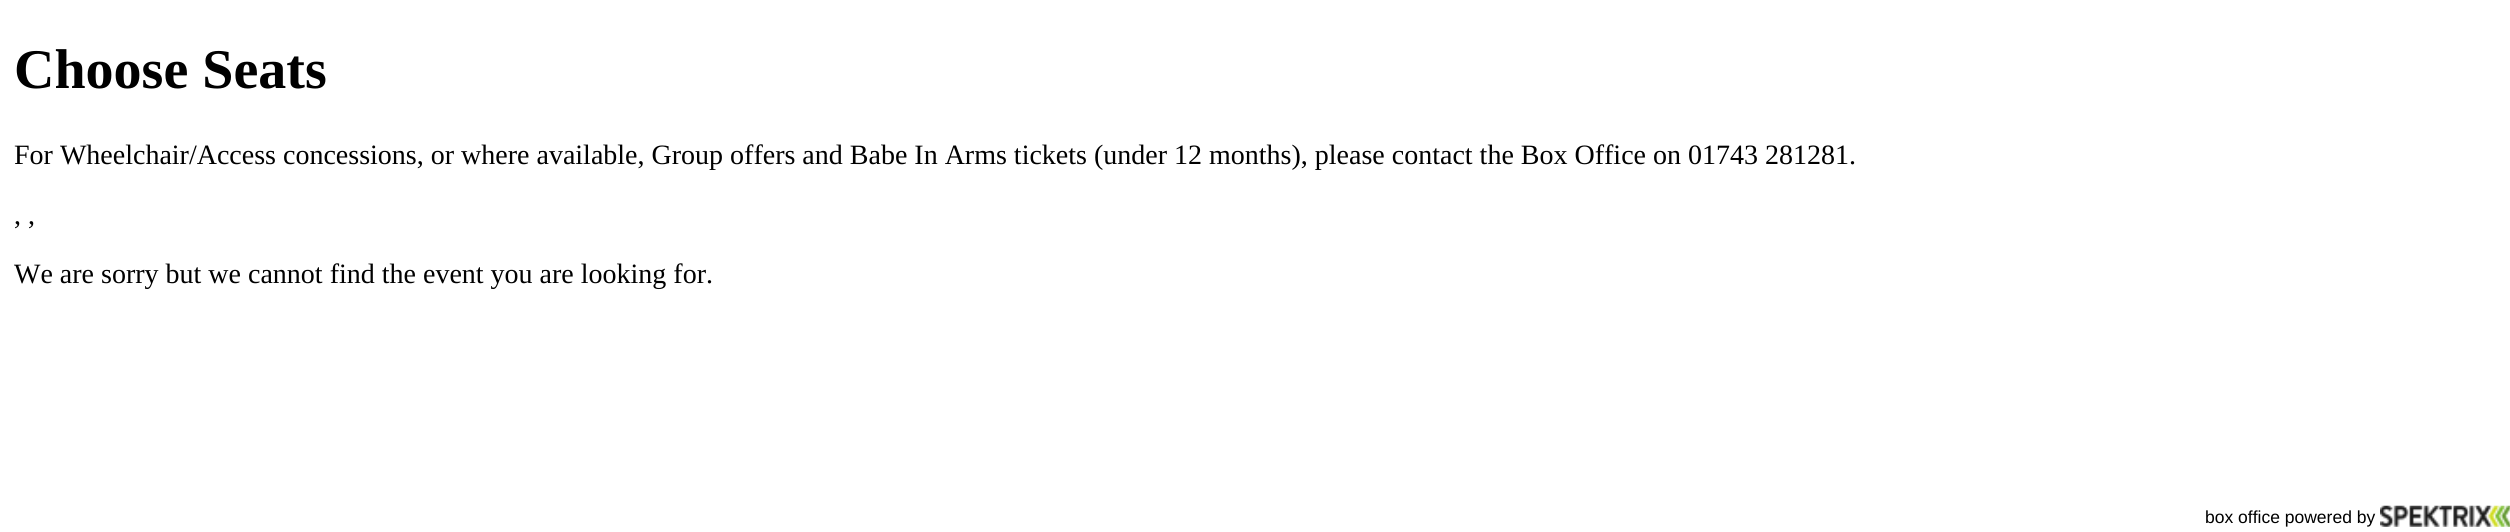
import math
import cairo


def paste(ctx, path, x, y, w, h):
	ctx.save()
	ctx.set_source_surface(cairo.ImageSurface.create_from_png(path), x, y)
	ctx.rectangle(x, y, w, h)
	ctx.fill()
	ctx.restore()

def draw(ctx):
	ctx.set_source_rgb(1, 1, 1)
	ctx.paint()
	ctx.select_font_face('Liberation Serif', cairo.FONT_SLANT_NORMAL, cairo.FONT_WEIGHT_BOLD)
	ctx.set_font_size(56)
	ctx.set_source_rgb(0, 0, 0)
	ctx.move_to(14, 88)
	ctx.show_text('Choose Seats')
	ctx.select_font_face('Liberation Serif')
	ctx.set_font_size(28)
	for x, y, s in [
		(14, 164, 'For Wheelchair/Access concessions, or where available, Group offers and Babe In Arms tickets (under 12 months), please contact the Box Office on 01743 281281.'),
		(14, 224, ', ,'),
		(14, 283, 'We are sorry but we cannot find the event you are looking for.'),
	]:
		ctx.move_to(x, y)
		ctx.show_text(s)
	ctx.select_font_face('Liberation Sans')
	ctx.set_font_size(17.5)
	ctx.move_to(2205, 523)
	ctx.show_text('box office powered by')
	paste(ctx, 'media/1.png', 2380, 505, 130, 22)


surface = cairo.ImageSurface(cairo.FORMAT_RGB24, 2510, 532)
ctx = cairo.Context(surface)
options = cairo.FontOptions()
options.set_hint_metrics(cairo.HINT_METRICS_OFF)
options.set_hint_style(cairo.HINT_STYLE_NONE)
ctx.set_font_options(options)
ctx.set_miter_limit(4)
draw(ctx)
surface.write_to_png('image.png')
